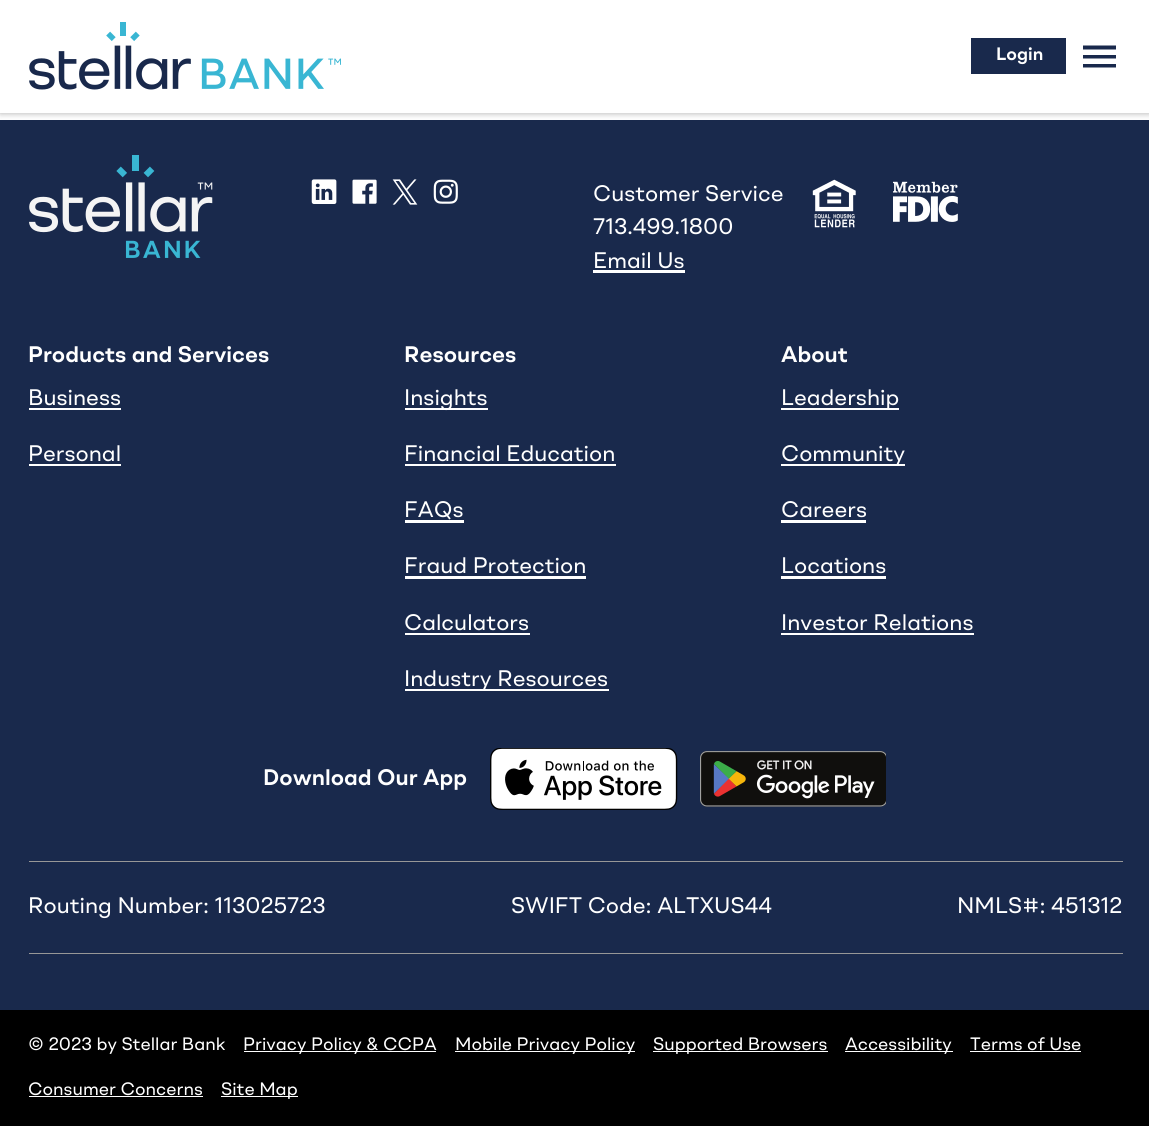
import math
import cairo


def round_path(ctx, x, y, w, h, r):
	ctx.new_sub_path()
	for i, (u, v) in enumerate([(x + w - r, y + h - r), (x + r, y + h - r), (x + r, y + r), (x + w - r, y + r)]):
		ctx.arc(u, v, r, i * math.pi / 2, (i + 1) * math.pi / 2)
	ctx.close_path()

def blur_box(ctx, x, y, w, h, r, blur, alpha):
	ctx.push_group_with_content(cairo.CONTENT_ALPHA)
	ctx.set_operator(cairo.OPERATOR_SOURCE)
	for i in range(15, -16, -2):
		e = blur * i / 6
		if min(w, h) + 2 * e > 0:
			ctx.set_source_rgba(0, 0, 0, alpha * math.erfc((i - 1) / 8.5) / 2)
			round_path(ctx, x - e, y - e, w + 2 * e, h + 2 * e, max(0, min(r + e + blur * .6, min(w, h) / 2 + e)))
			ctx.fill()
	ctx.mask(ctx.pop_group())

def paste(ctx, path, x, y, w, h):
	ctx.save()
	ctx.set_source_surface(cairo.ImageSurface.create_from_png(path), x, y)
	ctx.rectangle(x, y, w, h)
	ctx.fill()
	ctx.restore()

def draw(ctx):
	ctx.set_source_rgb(1, 1, 1)
	ctx.paint()
	ctx.set_source_rgb(0.098, 0.161, 0.298)
	ctx.rectangle(0, 120, 1149, 890)
	ctx.fill()
	ctx.set_source_rgb(0, 0, 0)
	blur_box(ctx, 0, 0, 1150, 114, 0, 3, 0.26)
	ctx.set_source_rgb(1, 1, 1)
	ctx.rectangle(0, 0, 1149, 113)
	ctx.fill()
	paste(ctx, 'media/1.png', 29, 22, 312, 68)
	ctx.set_source_rgb(0.098, 0.161, 0.298)
	ctx.rectangle(971, 38, 95, 36)
	ctx.fill()
	ctx.select_font_face('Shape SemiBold')
	ctx.set_font_size(18)
	ctx.set_source_rgb(1, 1, 1)
	ctx.move_to(996, 60)
	ctx.show_text('Login')
	ctx.set_source_rgb(0.098, 0.161, 0.298)
	ctx.new_path()
	ctx.move_to(1083, 45.5)
	ctx.line_to(1116, 45.5)
	ctx.line_to(1116, 49.5)
	ctx.line_to(1083, 49.5)
	ctx.close_path()
	ctx.move_to(1083, 58.5)
	ctx.line_to(1083, 55)
	ctx.line_to(1116, 55)
	ctx.line_to(1116, 58.5)
	ctx.close_path()
	ctx.move_to(1083, 67.5)
	ctx.line_to(1083, 64)
	ctx.line_to(1116, 64)
	ctx.line_to(1116, 67.5)
	ctx.close_path()
	ctx.fill()
	paste(ctx, 'media/2.png', 29, 155, 184, 103)
	paste(ctx, 'media/3.png', 311, 179, 26, 25)
	paste(ctx, 'media/4.png', 352, 179, 25, 25)
	ctx.select_font_face('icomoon')
	ctx.set_font_size(28)
	ctx.set_source_rgb(1, 1, 1)
	ctx.move_to(391, 204)
	ctx.show_text('X')
	paste(ctx, 'media/5.png', 433, 179, 25, 25)
	ctx.select_font_face('Shape')
	ctx.set_font_size(22.5)
	for x, y, s in [
		(593, 201, 'Customer Service'),
		(593, 234, '713.499.1800'),
		(593, 268, 'Email Us'),
	]:
		ctx.move_to(x, y)
		ctx.show_text(s)
	ctx.rectangle(593, 270, 92, 3)
	ctx.fill()
	paste(ctx, 'media/6.png', 812, 179, 44, 49)
	paste(ctx, 'media/7.png', 893, 181, 65, 41)
	ctx.select_font_face('Shape SemiBold')
	ctx.move_to(28, 362)
	ctx.show_text('Products and Services')
	ctx.select_font_face('Shape')
	ctx.move_to(28, 405)
	ctx.show_text('Business')
	ctx.rectangle(29, 408, 92, 2)
	ctx.fill()
	ctx.move_to(28, 461)
	ctx.show_text('Personal')
	ctx.rectangle(29, 464, 92, 2)
	ctx.fill()
	ctx.select_font_face('Shape SemiBold')
	ctx.move_to(404, 362)
	ctx.show_text('Resources')
	ctx.rectangle(405, 408, 83, 2)
	ctx.fill()
	ctx.select_font_face('Shape')
	ctx.move_to(404, 405)
	ctx.show_text('Insights')
	ctx.move_to(404, 461)
	ctx.show_text('Financial Education')
	ctx.rectangle(405, 464, 211, 2)
	ctx.fill()
	ctx.move_to(404, 517)
	ctx.show_text('FAQs')
	ctx.rectangle(405, 520, 59, 3)
	ctx.fill()
	ctx.move_to(404, 573)
	ctx.show_text('Fraud Protection')
	ctx.rectangle(405, 576, 181, 3)
	ctx.fill()
	ctx.move_to(404, 630)
	ctx.show_text('Calculators')
	ctx.rectangle(405, 633, 125, 2)
	ctx.fill()
	ctx.rectangle(405, 689, 204, 2)
	ctx.fill()
	ctx.move_to(404, 686)
	ctx.show_text('Industry Resources')
	ctx.select_font_face('Shape SemiBold')
	ctx.move_to(781, 362)
	ctx.show_text('About')
	ctx.rectangle(781, 408, 118, 2)
	ctx.fill()
	ctx.select_font_face('Shape')
	ctx.move_to(781, 405)
	ctx.show_text('Leadership')
	ctx.rectangle(781, 464, 124, 2)
	ctx.fill()
	ctx.move_to(781, 461)
	ctx.show_text('Community')
	ctx.move_to(781, 517)
	ctx.show_text('Careers')
	ctx.rectangle(781, 520, 85, 3)
	ctx.fill()
	ctx.move_to(781, 573)
	ctx.show_text('Locations')
	ctx.rectangle(781, 576, 105, 3)
	ctx.fill()
	ctx.move_to(781, 630)
	ctx.show_text('Investor Relations')
	ctx.rectangle(781, 633, 193, 2)
	ctx.fill()
	ctx.select_font_face('Shape SemiBold')
	ctx.move_to(263, 785)
	ctx.show_text('Download Our App')
	paste(ctx, 'media/8.png', 490, 748, 188, 62)
	paste(ctx, 'media/9.png', 700, 751, 186, 56)
	ctx.set_source_rgb(0.592, 0.592, 0.592)
	ctx.rectangle(29, 861, 1094, 1)
	ctx.fill()
	ctx.rectangle(29, 953, 1094, 1)
	ctx.fill()
	ctx.select_font_face('Shape')
	ctx.set_source_rgb(1, 1, 1)
	for x, y, s in [
		(28, 913, 'Routing Number: 113025723'),
		(511, 913, 'SWIFT Code: ALTXUS44'),
		(957, 913, 'NMLS#: 451312'),
	]:
		ctx.move_to(x, y)
		ctx.show_text(s)
	ctx.set_source_rgb(0, 0, 0)
	ctx.rectangle(0, 1010, 1149, 116)
	ctx.fill()
	ctx.set_font_size(18)
	ctx.set_source_rgb(1, 1, 1)
	ctx.move_to(28, 1050)
	ctx.show_text('© 2023 by Stellar Bank')
	ctx.rectangle(244, 1051, 192, 1)
	ctx.fill()
	ctx.move_to(243, 1050)
	ctx.show_text('Privacy Policy & CCPA')
	ctx.rectangle(455, 1051, 180, 1)
	ctx.fill()
	ctx.move_to(455, 1050)
	ctx.show_text('Mobile Privacy Policy')
	ctx.rectangle(653, 1051, 175, 1)
	ctx.fill()
	ctx.move_to(653, 1050)
	ctx.show_text('Supported Browsers')
	ctx.rectangle(845, 1051, 108, 1)
	ctx.fill()
	ctx.move_to(845, 1050)
	ctx.show_text('Accessibility')
	ctx.move_to(970, 1050)
	ctx.show_text('Terms of Use')
	ctx.rectangle(970, 1051, 111, 1)
	ctx.fill()
	ctx.move_to(28, 1095)
	ctx.show_text('Consumer Concerns')
	ctx.rectangle(29, 1096, 174, 1)
	ctx.fill()
	ctx.rectangle(221, 1096, 77, 1)
	ctx.fill()
	ctx.move_to(221, 1095)
	ctx.show_text('Site Map')


surface = cairo.ImageSurface(cairo.FORMAT_RGB24, 1149, 1126)
ctx = cairo.Context(surface)
options = cairo.FontOptions()
options.set_hint_metrics(cairo.HINT_METRICS_OFF)
options.set_hint_style(cairo.HINT_STYLE_NONE)
ctx.set_font_options(options)
ctx.set_miter_limit(4)
draw(ctx)
surface.write_to_png('image.png')
